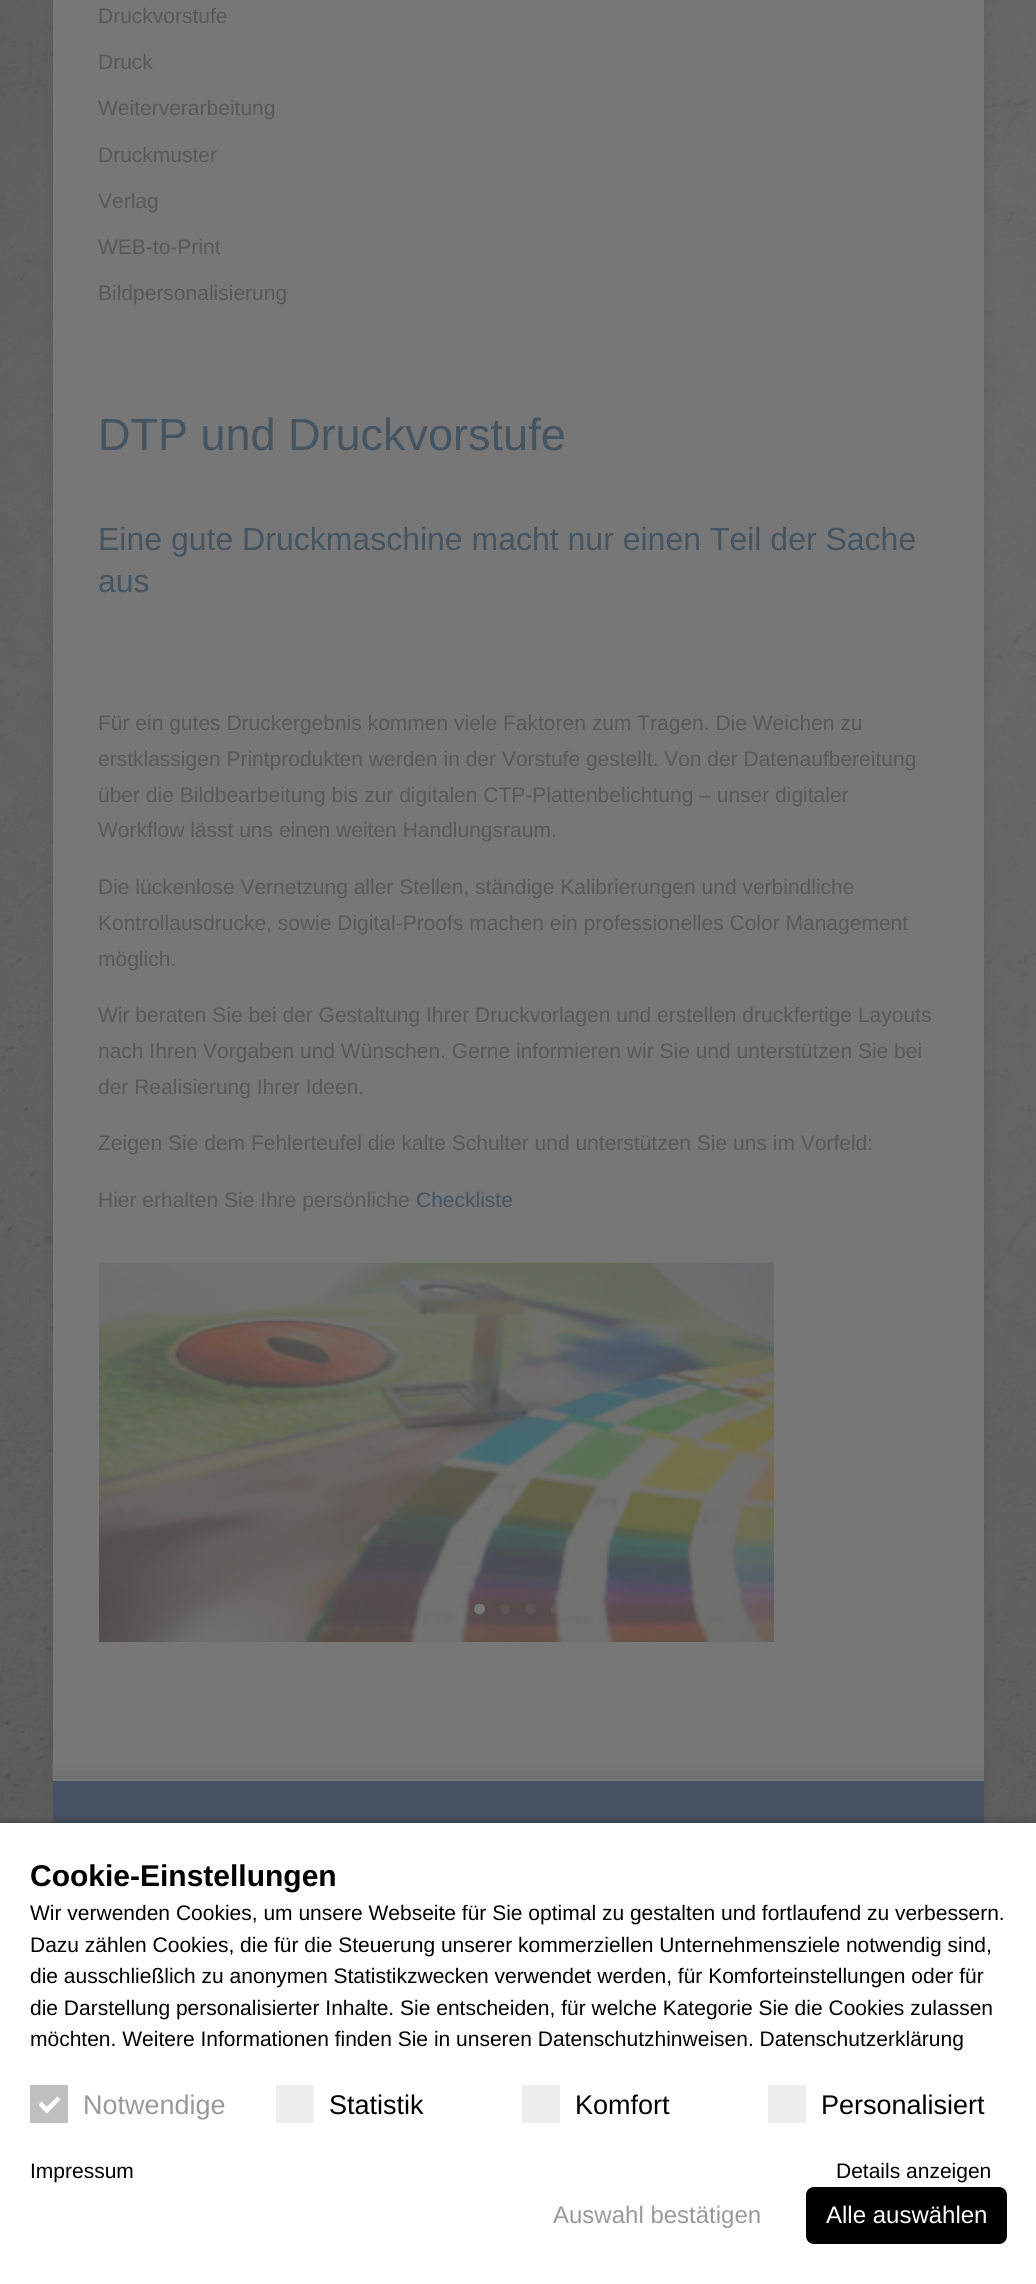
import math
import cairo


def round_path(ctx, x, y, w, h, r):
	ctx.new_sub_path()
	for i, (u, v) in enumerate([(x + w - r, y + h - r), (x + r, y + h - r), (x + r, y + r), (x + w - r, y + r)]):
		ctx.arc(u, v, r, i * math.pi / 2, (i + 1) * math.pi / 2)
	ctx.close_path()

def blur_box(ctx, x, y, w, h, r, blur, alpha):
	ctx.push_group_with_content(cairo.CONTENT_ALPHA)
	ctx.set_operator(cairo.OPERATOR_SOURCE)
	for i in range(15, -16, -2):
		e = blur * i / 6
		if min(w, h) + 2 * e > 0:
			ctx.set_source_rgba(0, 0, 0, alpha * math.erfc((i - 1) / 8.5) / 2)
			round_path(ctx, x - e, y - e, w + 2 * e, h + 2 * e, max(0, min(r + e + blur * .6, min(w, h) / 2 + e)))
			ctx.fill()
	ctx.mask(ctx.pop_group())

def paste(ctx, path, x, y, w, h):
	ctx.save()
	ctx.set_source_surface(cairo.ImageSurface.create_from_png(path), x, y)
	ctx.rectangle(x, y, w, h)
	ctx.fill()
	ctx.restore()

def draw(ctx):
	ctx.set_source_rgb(1, 1, 1)
	ctx.paint()
	paste(ctx, 'media/1.png', 0, 0, 1036, 1823)
	ctx.set_source_rgb(0.267, 0.267, 0.267)
	blur_box(ctx, 53, -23, 931, 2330, 0, 7.5, 0.2)
	ctx.set_source_rgb(0.467, 0.467, 0.467)
	ctx.rectangle(53, 0, 931, 1762)
	ctx.fill()
	ctx.select_font_face('Liberation Sans')
	ctx.set_font_size(21)
	ctx.set_source_rgb(0.345, 0.345, 0.345)
	for x, y, s in [
		(98, 23, 'Druckvorstufe'),
		(98, 69, 'Druck'),
		(98, 115, 'Weiterverarbeitung'),
		(98, 162, 'Druckmuster'),
		(98, 208, 'Verlag'),
		(98, 254, 'WEB-to-Print'),
		(98, 300, 'Bildpersonalisierung'),
	]:
		ctx.move_to(x, y)
		ctx.show_text(s)
	ctx.set_font_size(45)
	ctx.set_source_rgb(0.267, 0.329, 0.38)
	ctx.move_to(98, 450)
	ctx.show_text('DTP und Druckvorstufe')
	ctx.set_font_size(32)
	ctx.move_to(98, 550)
	ctx.show_text('Eine gute Druckmaschine macht nur einen Teil der Sache')
	ctx.move_to(98, 592)
	ctx.show_text('aus')
	ctx.set_font_size(21)
	ctx.set_source_rgb(0.345, 0.345, 0.345)
	for x, y, s in [
		(98, 730, 'Für ein gutes Druckergebnis kommen viele Faktoren zum Tragen. Die Weichen zu'),
		(98, 766, 'erstklassigen Printprodukten werden in der Vorstufe gestellt. Von der Datenaufbereitung'),
		(98, 802, 'über die Bildbearbeitung bis zur digitalen CTP-Plattenbelichtung – unser digitaler'),
		(98, 837, 'Workflow lässt uns einen weiten Handlungsraum.'),
		(98, 894, 'Die lückenlose Vernetzung aller Stellen, ständige Kalibrierungen und verbindliche'),
		(98, 930, 'Kontrollausdrucke, sowie Digital-Proofs machen ein professionelles Color Management'),
		(98, 966, 'möglich.'),
		(98, 1022, 'Wir beraten Sie bei der Gestaltung Ihrer Druckvorlagen und erstellen druckfertige Layouts'),
		(98, 1058, 'nach Ihren Vorgaben und Wünschen. Gerne informieren wir Sie und unterstützen Sie bei'),
		(98, 1094, 'der Realisierung Ihrer Ideen.'),
		(98, 1150, 'Zeigen Sie dem Fehlerteufel die kalte Schulter und unterstützen Sie uns im Vorfeld:'),
		(98, 1207, 'Hier erhalten Sie Ihre persönliche'),
	]:
		ctx.move_to(x, y)
		ctx.show_text(s)
	ctx.set_source_rgb(0.267, 0.329, 0.38)
	ctx.move_to(416, 1207)
	ctx.show_text('Checkliste')
	paste(ctx, 'media/2.png', 99, 1262, 675, 380)
	ctx.set_source_rgb(0.467, 0.467, 0.467)
	round_path(ctx, 474, 1604, 11, 10, 5)
	ctx.fill()
	ctx.set_source_rgba(0.467, 0.467, 0.467, 0.25)
	ctx.arc(505, 1609, 5, 0, 2 * math.pi)
	ctx.fill()
	round_path(ctx, 525, 1604, 11, 10, 5)
	ctx.fill()
	ctx.arc(556, 1609, 5, 0, 2 * math.pi)
	ctx.fill()
	ctx.set_source_rgb(0.467, 0.467, 0.467)
	ctx.rectangle(53, 1780, 931, 1)
	ctx.fill()
	paste(ctx, 'media/3.png', 52, 1762, 932, 18)
	ctx.set_source_rgb(0.275, 0.318, 0.38)
	ctx.rectangle(53, 1781, 931, 42)
	ctx.fill()
	ctx.set_source_rgb(0, 0, 0)
	blur_box(ctx, 0, 1823, 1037, 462, 0, 4, 0.35)
	ctx.set_source_rgb(1, 1, 1)
	ctx.rectangle(0, 1823, 1036, 461)
	ctx.fill()
	ctx.select_font_face('Liberation Sans', cairo.FONT_SLANT_NORMAL, cairo.FONT_WEIGHT_BOLD)
	ctx.set_font_size(30)
	ctx.set_source_rgb(0, 0, 0)
	ctx.move_to(30, 1886)
	ctx.show_text('Cookie-Einstellungen')
	ctx.select_font_face('Liberation Sans')
	ctx.set_font_size(21)
	for x, y, s in [
		(30, 1920, 'Wir verwenden Cookies, um unsere Webseite für Sie optimal zu gestalten und fortlaufend zu verbessern.'),
		(30, 1952, 'Dazu zählen Cookies, die für die Steuerung unserer kommerziellen Unternehmensziele notwendig sind,'),
		(30, 1983, 'die ausschließlich zu anonymen Statistikzwecken verwendet werden, für Komforteinstellungen oder für'),
		(30, 2015, 'die Darstellung personalisierter Inhalte. Sie entscheiden, für welche Kategorie Sie die Cookies zulassen'),
		(30, 2046, 'möchten. Weitere Informationen finden Sie in unseren Datenschutzhinweisen. Datenschutzerklärung'),
	]:
		ctx.move_to(x, y)
		ctx.show_text(s)
	ctx.set_source_rgb(0.749, 0.749, 0.749)
	ctx.rectangle(30, 2085, 38, 38)
	ctx.fill()
	ctx.set_source_rgb(1, 1, 1)
	ctx.new_path()
	ctx.move_to(57.5, 2096.5)
	ctx.line_to(60.5, 2099.5)
	ctx.line_to(47, 2113.5)
	ctx.line_to(43.5, 2110)
	ctx.close_path()
	ctx.fill()
	ctx.new_path()
	ctx.move_to(41.5, 2101.5)
	ctx.line_to(50, 2110)
	ctx.line_to(47, 2113.5)
	ctx.line_to(38.5, 2105)
	ctx.close_path()
	ctx.fill()
	ctx.set_font_size(27)
	ctx.set_source_rgb(0.6, 0.6, 0.6)
	ctx.move_to(83, 2114)
	ctx.show_text('Notwendige')
	ctx.set_source_rgb(0.933, 0.933, 0.933)
	ctx.rectangle(276, 2085, 38, 38)
	ctx.fill()
	ctx.set_source_rgb(0, 0, 0)
	ctx.move_to(329, 2114)
	ctx.show_text('Statistik')
	ctx.set_source_rgb(0.933, 0.933, 0.933)
	ctx.rectangle(522, 2085, 38, 38)
	ctx.fill()
	ctx.set_source_rgb(0, 0, 0)
	ctx.move_to(575, 2114)
	ctx.show_text('Komfort')
	ctx.set_source_rgb(0.933, 0.933, 0.933)
	ctx.rectangle(768, 2085, 38, 38)
	ctx.fill()
	ctx.set_source_rgb(0, 0, 0)
	ctx.move_to(821, 2114)
	ctx.show_text('Personalisiert')
	ctx.set_font_size(21)
	ctx.move_to(30, 2178)
	ctx.show_text('Impressum')
	ctx.move_to(836, 2178)
	ctx.show_text('Details anzeigen')
	ctx.set_font_size(24)
	ctx.set_source_rgb(0.6, 0.6, 0.6)
	ctx.move_to(553, 2223)
	ctx.show_text('Auswahl bestätigen')
	ctx.set_source_rgb(0, 0, 0)
	round_path(ctx, 808.5, 2189.5, 196, 52, 5.5)
	ctx.fill_preserve()
	ctx.set_line_width(5)
	ctx.stroke()
	ctx.set_source_rgb(1, 1, 1)
	ctx.move_to(826, 2223)
	ctx.show_text('Alle auswählen')


surface = cairo.ImageSurface(cairo.FORMAT_RGB24, 1036, 2284)
ctx = cairo.Context(surface)
options = cairo.FontOptions()
options.set_hint_metrics(cairo.HINT_METRICS_OFF)
options.set_hint_style(cairo.HINT_STYLE_NONE)
ctx.set_font_options(options)
ctx.set_miter_limit(4)
draw(ctx)
surface.write_to_png('image.png')
